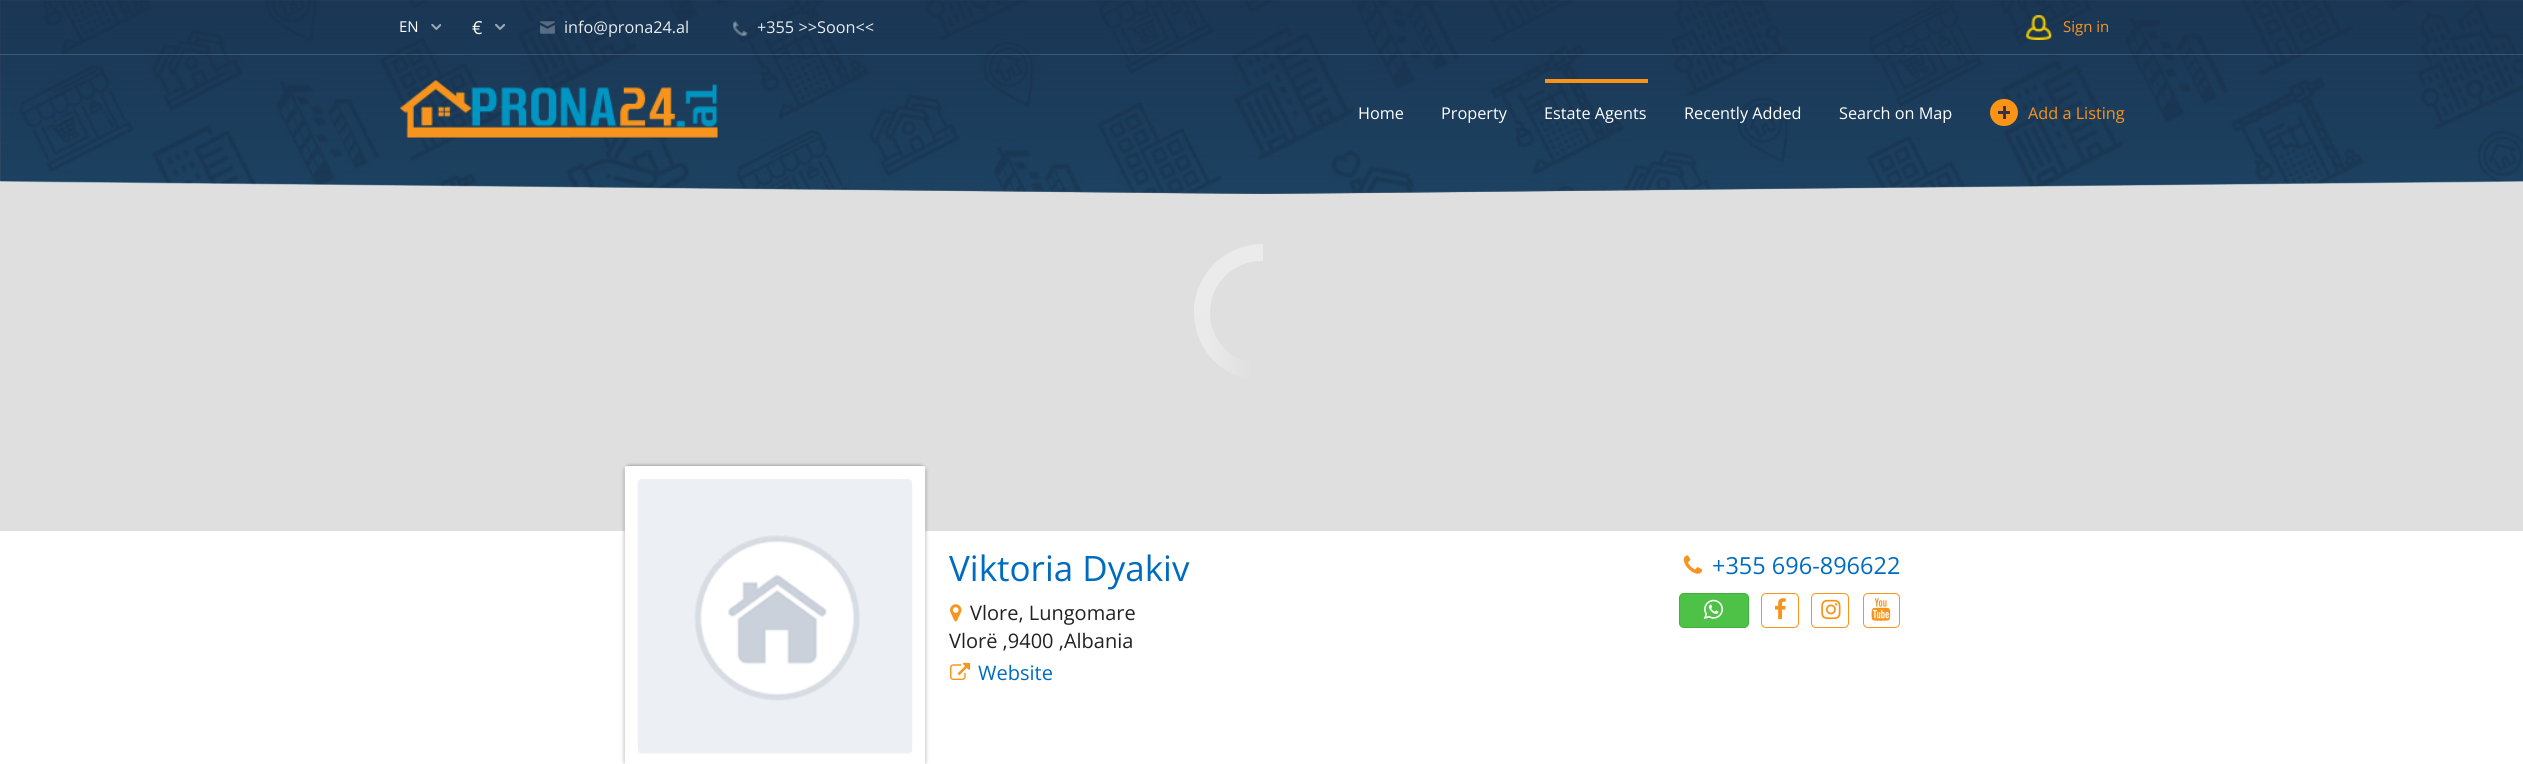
import math
import cairo


def round_path(ctx, x, y, w, h, r):
	ctx.new_sub_path()
	for i, (u, v) in enumerate([(x + w - r, y + h - r), (x + r, y + h - r), (x + r, y + r), (x + w - r, y + r)]):
		ctx.arc(u, v, r, i * math.pi / 2, (i + 1) * math.pi / 2)
	ctx.close_path()

def blur_box(ctx, x, y, w, h, r, blur, alpha):
	ctx.push_group_with_content(cairo.CONTENT_ALPHA)
	ctx.set_operator(cairo.OPERATOR_SOURCE)
	for i in range(15, -16, -2):
		e = blur * i / 6
		if min(w, h) + 2 * e > 0:
			ctx.set_source_rgba(0, 0, 0, alpha * math.erfc((i - 1) / 8.5) / 2)
			round_path(ctx, x - e, y - e, w + 2 * e, h + 2 * e, max(0, min(r + e + blur * .6, min(w, h) / 2 + e)))
			ctx.fill()
	ctx.mask(ctx.pop_group())

def paste(ctx, path, x, y, w, h):
	ctx.save()
	ctx.set_source_surface(cairo.ImageSurface.create_from_png(path), x, y)
	ctx.rectangle(x, y, w, h)
	ctx.fill()
	ctx.restore()

def draw(ctx):
	ctx.set_source_rgb(1, 1, 1)
	ctx.paint()
	ctx.set_source_rgb(0.875, 0.875, 0.875)
	ctx.rectangle(0, 181, 2523, 350)
	ctx.fill()
	ctx.set_source_rgb(0.62, 0.616, 0.635)
	ctx.new_path()
	ctx.move_to(0, 0)
	ctx.line_to(0, 181)
	ctx.line_to(1262, 194)
	ctx.line_to(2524, 181)
	ctx.line_to(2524, 0)
	ctx.close_path()
	ctx.fill()
	paste(ctx, 'media/1.png', 0, 0, 2523, 194)
	ctx.set_source_rgba(0.094, 0.18, 0.294, 0.6)
	ctx.new_path()
	ctx.move_to(0, 0)
	ctx.line_to(0, 181)
	ctx.line_to(1262, 194)
	ctx.line_to(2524, 181)
	ctx.line_to(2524, 0)
	ctx.close_path()
	ctx.fill()
	gradient = cairo.LinearGradient(1262, 0, 1262, 250)
	gradient.add_color_stop_rgba(0, 0.094, 0.18, 0.294, 0.65)
	gradient.add_color_stop_rgba(1, 0.094, 0.18, 0.294, 0)
	ctx.set_source(gradient)
	ctx.new_path()
	ctx.move_to(0, 0)
	ctx.line_to(0, 181)
	ctx.line_to(1262, 194)
	ctx.line_to(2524, 181)
	ctx.line_to(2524, 0)
	ctx.close_path()
	ctx.fill()
	ctx.set_source_rgba(1, 1, 1, 0.15)
	ctx.rectangle(0, 54, 2523, 1)
	ctx.fill()
	ctx.select_font_face('Open Sans')
	ctx.set_font_size(15)
	ctx.set_source_rgb(1, 1, 1)
	ctx.move_to(399, 32)
	ctx.show_text('EN')
	paste(ctx, 'media/2.png', 431, 24, 10, 6)
	ctx.set_font_size(18)
	ctx.move_to(472, 34)
	ctx.show_text('€')
	paste(ctx, 'media/3.png', 495, 24, 10, 6)
	paste(ctx, 'media/4.png', 540, 21, 15, 13)
	ctx.set_font_size(16.25)
	ctx.set_source_rgb(0.91, 0.922, 0.933)
	ctx.move_to(564, 33)
	ctx.show_text('info@prona24.al')
	paste(ctx, 'media/5.png', 733, 21, 15, 15)
	ctx.move_to(757, 33)
	ctx.show_text('+355 >>Soon<<')
	paste(ctx, 'media/6.png', 2026, 15, 26, 25)
	ctx.set_font_size(15)
	ctx.set_source_rgb(0.984, 0.576, 0.09)
	ctx.move_to(2063, 32)
	ctx.show_text('Sign in')
	paste(ctx, 'media/7.png', 400, 79, 318, 59)
	ctx.set_font_size(16.25)
	ctx.set_source_rgb(1, 1, 1)
	ctx.move_to(1358, 119)
	ctx.show_text('Home')
	ctx.move_to(1441, 119)
	ctx.show_text('Property')
	ctx.set_source_rgb(0.984, 0.576, 0.09)
	ctx.rectangle(1545, 79, 103, 4)
	ctx.fill()
	ctx.set_source_rgb(1, 1, 1)
	for x, y, s in [
		(1544, 119, 'Estate Agents'),
		(1684, 119, 'Recently Added'),
		(1839, 119, 'Search on Map'),
	]:
		ctx.move_to(x, y)
		ctx.show_text(s)
	ctx.set_source_rgb(0.984, 0.576, 0.09)
	round_path(ctx, 1990, 99, 28, 27, 13.5)
	ctx.fill()
	ctx.set_source_rgb(0.216, 0.2, 0.275)
	ctx.rectangle(2003, 106, 3, 13)
	ctx.fill()
	ctx.rectangle(1998, 111, 12, 3)
	ctx.fill()
	ctx.set_source_rgb(0.984, 0.576, 0.09)
	ctx.move_to(2028, 119)
	ctx.show_text('Add a Listing')
	gradient = cairo.LinearGradient(1194, 313, 1331, 313)
	gradient.add_color_stop_rgba(0.1, 0.918, 0.918, 0.918, 1)
	gradient.add_color_stop_rgba(0.42, 0.875, 0.875, 0.875, 1)
	ctx.set_source(gradient)
	ctx.new_path()
	ctx.arc(1262.5, 312.5, 68.5, 0, 2 * math.pi)
	ctx.fill()
	ctx.set_source_rgb(0.918, 0.918, 0.918)
	ctx.new_path()
	ctx.move_to(1263, 244)
	ctx.line_to(1263, 313)
	ctx.line_to(1194, 313)
	ctx.curve_to(1194, 275, 1225, 244, 1263, 244)
	ctx.close_path()
	ctx.fill()
	ctx.set_source_rgb(0.875, 0.875, 0.875)
	round_path(ctx, 1210, 261, 104, 103, 51.5)
	ctx.fill()
	ctx.set_source_rgb(0, 0, 0)
	blur_box(ctx, 625, 466, 300, 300, 5, 2, 0.45)
	ctx.set_source_rgb(1, 1, 1)
	round_path(ctx, 625, 466, 300, 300, 5)
	ctx.fill()
	ctx.new_path()
	ctx.move_to(631, 472.5)
	ctx.line_to(919, 472.5)
	ctx.line_to(919, 760)
	ctx.line_to(631, 760)
	ctx.close_path()
	ctx.set_line_width(12.5)
	ctx.stroke()
	paste(ctx, 'media/8.png', 637, 479, 276, 275)
	ctx.set_font_size(35)
	ctx.set_source_rgb(0, 0.424, 0.753)
	ctx.move_to(949, 581)
	ctx.show_text('Viktoria Dyakiv')
	paste(ctx, 'media/9.png', 950, 604, 12, 18)
	ctx.set_font_size(20)
	ctx.set_source_rgb(0.133, 0.133, 0.133)
	ctx.move_to(970, 620)
	ctx.show_text('Vlore, Lungomare')
	ctx.move_to(949, 648)
	ctx.show_text('Vlorë ,9400 ,Albania')
	paste(ctx, 'media/10.png', 950, 662, 20, 18)
	ctx.set_source_rgb(0, 0.424, 0.753)
	ctx.move_to(978, 680)
	ctx.show_text('Website')
	paste(ctx, 'media/11.png', 1683, 555, 20, 19)
	ctx.set_font_size(23.5)
	ctx.move_to(1712, 574)
	ctx.show_text('+355 696-896622')
	ctx.set_source_rgb(0.302, 0.761, 0.278)
	round_path(ctx, 1679.5, 593.5, 69, 34, 4.5)
	ctx.fill_preserve()
	ctx.set_source_rgb(0.247, 0.694, 0.224)
	ctx.set_line_width(1)
	ctx.stroke()
	paste(ctx, 'media/12.png', 1703, 599, 20, 21)
	round_path(ctx, 1761.5, 593.5, 37, 34, 4.5)
	ctx.set_source_rgb(0.969, 0.58, 0.114)
	ctx.stroke()
	paste(ctx, 'media/13.png', 1774, 598, 12, 22)
	round_path(ctx, 1811.5, 593.5, 37, 34, 4.5)
	ctx.stroke()
	paste(ctx, 'media/14.png', 1821, 599, 20, 21)
	round_path(ctx, 1863.5, 593.5, 36, 34, 4.5)
	ctx.stroke()
	paste(ctx, 'media/15.png', 1871, 598, 20, 23)


surface = cairo.ImageSurface(cairo.FORMAT_RGB24, 2523, 764)
ctx = cairo.Context(surface)
options = cairo.FontOptions()
options.set_hint_metrics(cairo.HINT_METRICS_OFF)
options.set_hint_style(cairo.HINT_STYLE_NONE)
ctx.set_font_options(options)
ctx.set_miter_limit(4)
draw(ctx)
surface.write_to_png('image.png')
